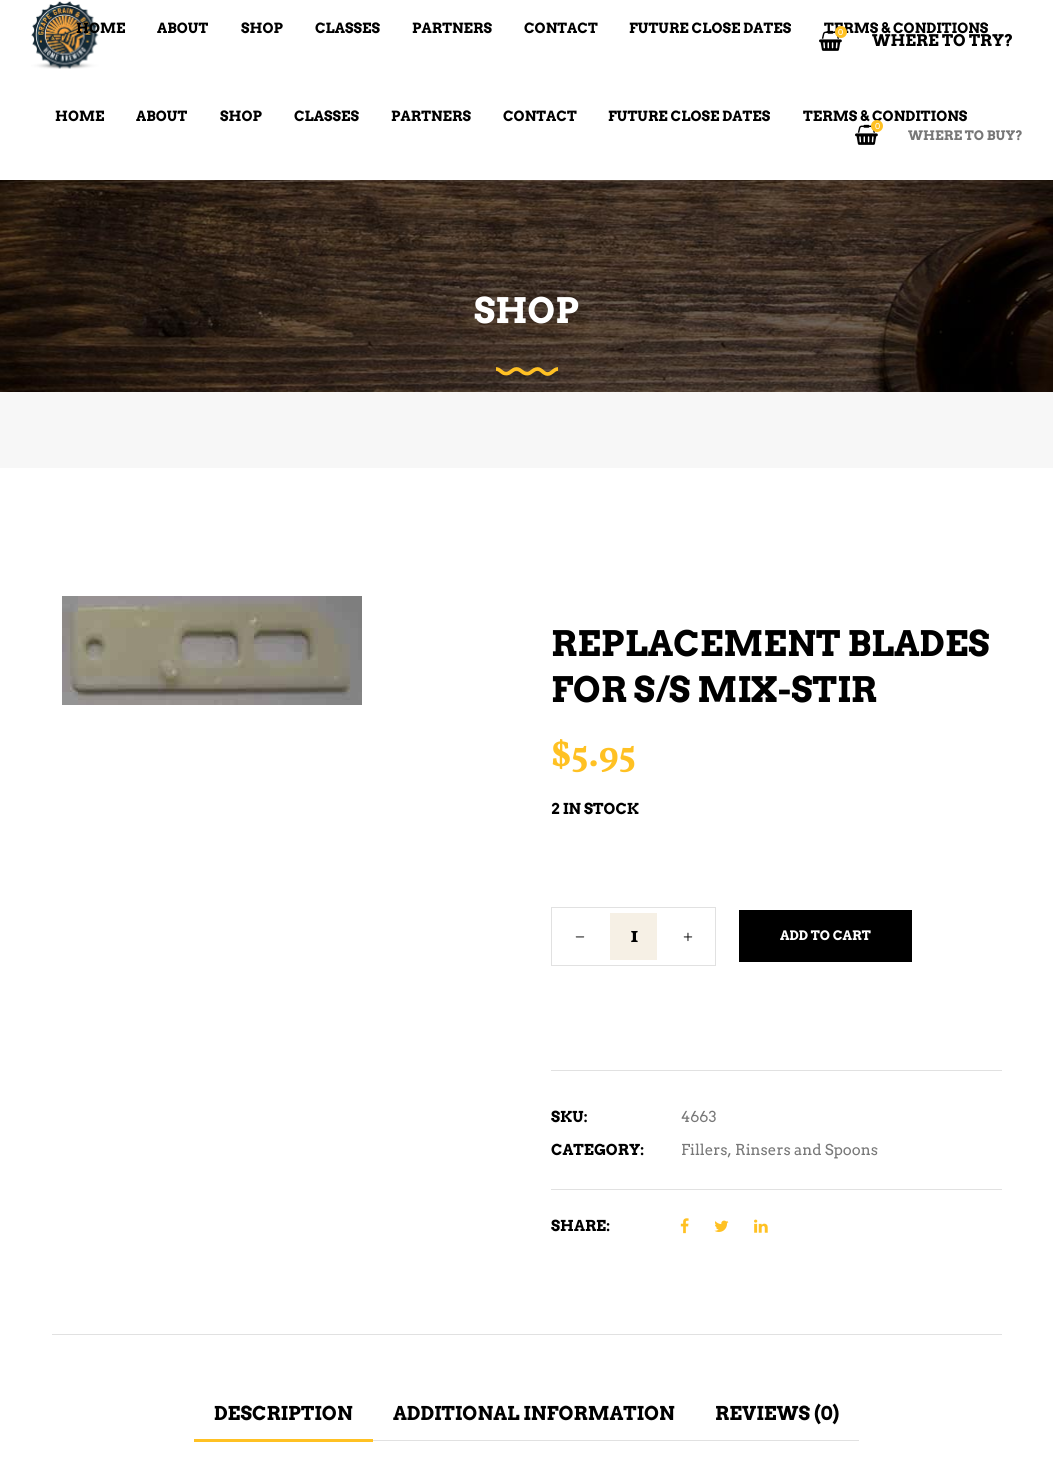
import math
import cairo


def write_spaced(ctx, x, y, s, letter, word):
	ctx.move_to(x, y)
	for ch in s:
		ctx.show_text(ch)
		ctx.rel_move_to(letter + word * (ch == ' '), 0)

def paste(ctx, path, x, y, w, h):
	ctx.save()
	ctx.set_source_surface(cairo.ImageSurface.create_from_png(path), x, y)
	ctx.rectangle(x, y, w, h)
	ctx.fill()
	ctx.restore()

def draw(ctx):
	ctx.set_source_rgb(1, 1, 1)
	ctx.paint()
	paste(ctx, 'media/2.png', 31, 1, 68, 68)
	ctx.select_font_face('Arvo', cairo.FONT_SLANT_NORMAL, cairo.FONT_WEIGHT_BOLD)
	ctx.set_font_size(14)
	ctx.set_source_rgb(0, 0, 0)
	for x, y, s in [
		(76, 33, 'HOME'),
		(157, 33, 'ABOUT'),
		(241, 33, 'SHOP'),
		(315, 33, 'CLASSES'),
		(412, 33, 'PARTNERS'),
		(524, 33, 'CONTACT'),
		(629, 33, 'FUTURE CLOSE DATES'),
		(824, 33, 'TERMS & CONDITIONS'),
	]:
		ctx.move_to(x, y)
		ctx.show_text(s)
	paste(ctx, 'media/1.png', 819, 30, 23, 21)
	ctx.set_source_rgb(1, 0.757, 0.137)
	ctx.arc(841, 32, 6, 0, 2 * math.pi)
	ctx.fill()
	ctx.select_font_face('Arvo')
	ctx.set_font_size(8)
	ctx.set_source_rgb(1, 1, 1)
	ctx.move_to(838, 35)
	ctx.show_text('0')
	ctx.select_font_face('Arvo', cairo.FONT_SLANT_NORMAL, cairo.FONT_WEIGHT_BOLD)
	ctx.set_font_size(16)
	ctx.set_source_rgb(0, 0, 0)
	ctx.move_to(872, 46)
	ctx.show_text('WHERE TO TRY?')
	ctx.set_font_size(14)
	for x, y, s in [
		(55, 121, 'HOME'),
		(136, 121, 'ABOUT'),
		(220, 121, 'SHOP'),
		(294, 121, 'CLASSES'),
		(391, 121, 'PARTNERS'),
		(503, 121, 'CONTACT'),
		(608, 121, 'FUTURE CLOSE DATES'),
		(803, 121, 'TERMS & CONDITIONS'),
	]:
		ctx.move_to(x, y)
		ctx.show_text(s)
	paste(ctx, 'media/3.png', 855, 124, 23, 21)
	ctx.set_source_rgb(1, 0.757, 0.137)
	ctx.arc(877, 126, 6, 0, 2 * math.pi)
	ctx.fill()
	ctx.select_font_face('Arvo')
	ctx.set_font_size(8)
	ctx.set_source_rgb(1, 1, 1)
	ctx.move_to(875, 129)
	ctx.show_text('0')
	ctx.select_font_face('Arvo', cairo.FONT_SLANT_NORMAL, cairo.FONT_WEIGHT_BOLD)
	ctx.set_font_size(13)
	ctx.set_source_rgb(0.467, 0.467, 0.467)
	ctx.move_to(908, 140)
	ctx.show_text('WHERE TO BUY?')
	ctx.set_source_rgb(0.965, 0.965, 0.965)
	ctx.rectangle(0, 392, 1053, 76)
	ctx.fill()
	paste(ctx, 'media/4.png', 0, 180, 1053, 212)
	ctx.set_font_size(35)
	ctx.set_source_rgb(1, 1, 1)
	ctx.move_to(474, 323)
	ctx.show_text('SHOP')
	ctx.new_path()
	ctx.move_to(558, 369)
	ctx.curve_to(553.5, 369, 552, 374, 547.5, 374)
	ctx.curve_to(543.5, 374, 541.5, 369, 537.5, 369)
	ctx.curve_to(532.5, 369, 531, 374.5, 526, 373.5)
	ctx.curve_to(522, 373, 520.5, 369, 516.5, 369)
	ctx.curve_to(512, 369, 510, 374.5, 505, 373.5)
	ctx.curve_to(501.5, 373, 500, 369, 496, 369)
	ctx.set_source_rgb(1, 0.757, 0.137)
	ctx.set_line_width(3.7)
	ctx.stroke()
	paste(ctx, 'media/5.png', 62, 596, 300, 109)
	ctx.set_source_rgb(0, 0, 0)
	ctx.move_to(551, 656)
	ctx.show_text('REPLACEMENT BLADES')
	ctx.move_to(551, 702)
	ctx.show_text('FOR S/S MIX-STIR')
	ctx.select_font_face('Vollkorn', cairo.FONT_SLANT_NORMAL, cairo.FONT_WEIGHT_BOLD)
	ctx.set_font_size(36)
	ctx.set_source_rgb(1, 0.757, 0.137)
	ctx.move_to(551, 766)
	ctx.show_text('$5.95')
	ctx.select_font_face('Arvo', cairo.FONT_SLANT_NORMAL, cairo.FONT_WEIGHT_BOLD)
	ctx.set_font_size(15)
	ctx.set_source_rgb(0, 0, 0)
	ctx.move_to(551, 814)
	ctx.show_text('2 IN STOCK')
	ctx.rectangle(551.5, 907.5, 164, 58)
	ctx.set_source_rgb(0.882, 0.882, 0.882)
	ctx.set_line_width(1)
	ctx.stroke()
	paste(ctx, 'media/6.png', 575, 936, 10, 2)
	ctx.set_source_rgb(0.961, 0.941, 0.898)
	ctx.rectangle(610, 913, 47, 47)
	ctx.fill()
	ctx.select_font_face('Vollkorn', cairo.FONT_SLANT_NORMAL, cairo.FONT_WEIGHT_BOLD)
	ctx.set_font_size(22)
	ctx.set_source_rgb(0, 0, 0)
	write_spaced(ctx, 630, 942, '1', 7, 0)
	paste(ctx, 'media/7.png', 683, 932, 10, 10)
	ctx.rectangle(739, 910, 173, 52)
	ctx.fill()
	ctx.select_font_face('Arvo', cairo.FONT_SLANT_NORMAL, cairo.FONT_WEIGHT_BOLD)
	ctx.set_font_size(13)
	ctx.set_source_rgb(1, 1, 1)
	ctx.move_to(780, 940)
	ctx.show_text('ADD TO CART')
	ctx.set_source_rgb(0.882, 0.882, 0.882)
	ctx.rectangle(551, 1070, 451, 1)
	ctx.fill()
	ctx.rectangle(551, 1189, 451, 1)
	ctx.fill()
	ctx.set_font_size(15)
	ctx.set_source_rgb(0, 0, 0)
	ctx.move_to(551, 1122)
	ctx.show_text('SKU:')
	ctx.select_font_face('Arvo')
	ctx.set_source_rgb(0.467, 0.467, 0.467)
	ctx.move_to(681, 1122)
	ctx.show_text('4663')
	ctx.select_font_face('Arvo', cairo.FONT_SLANT_NORMAL, cairo.FONT_WEIGHT_BOLD)
	ctx.set_source_rgb(0, 0, 0)
	ctx.move_to(551, 1155)
	ctx.show_text('CATEGORY:')
	ctx.select_font_face('Arvo')
	ctx.set_source_rgb(0.467, 0.467, 0.467)
	ctx.move_to(681, 1155)
	ctx.show_text('Fillers, Rinsers and Spoons')
	ctx.select_font_face('Arvo', cairo.FONT_SLANT_NORMAL, cairo.FONT_WEIGHT_BOLD)
	ctx.set_source_rgb(0, 0, 0)
	ctx.move_to(551, 1231)
	ctx.show_text('SHARE:')
	paste(ctx, 'media/8.png', 680, 1218, 9, 16)
	paste(ctx, 'media/9.png', 714, 1220, 15, 12)
	paste(ctx, 'media/10.png', 754, 1219, 14, 14)
	ctx.set_source_rgb(0.882, 0.882, 0.882)
	ctx.rectangle(52, 1334, 950, 1)
	ctx.rectangle(373, 1440, 486, 1)
	ctx.fill()
	ctx.set_source_rgb(1, 0.757, 0.137)
	ctx.rectangle(194, 1439, 179, 3)
	ctx.fill()
	ctx.set_font_size(19)
	ctx.set_source_rgb(0, 0, 0)
	for x, y, s in [
		(214, 1420, 'DESCRIPTION'),
		(393, 1420, 'ADDITIONAL INFORMATION'),
		(715, 1420, 'REVIEWS (0)'),
	]:
		ctx.move_to(x, y)
		ctx.show_text(s)


surface = cairo.ImageSurface(cairo.FORMAT_RGB24, 1053, 1463)
ctx = cairo.Context(surface)
options = cairo.FontOptions()
options.set_hint_metrics(cairo.HINT_METRICS_OFF)
options.set_hint_style(cairo.HINT_STYLE_NONE)
ctx.set_font_options(options)
ctx.set_miter_limit(4)
draw(ctx)
surface.write_to_png('image.png')
